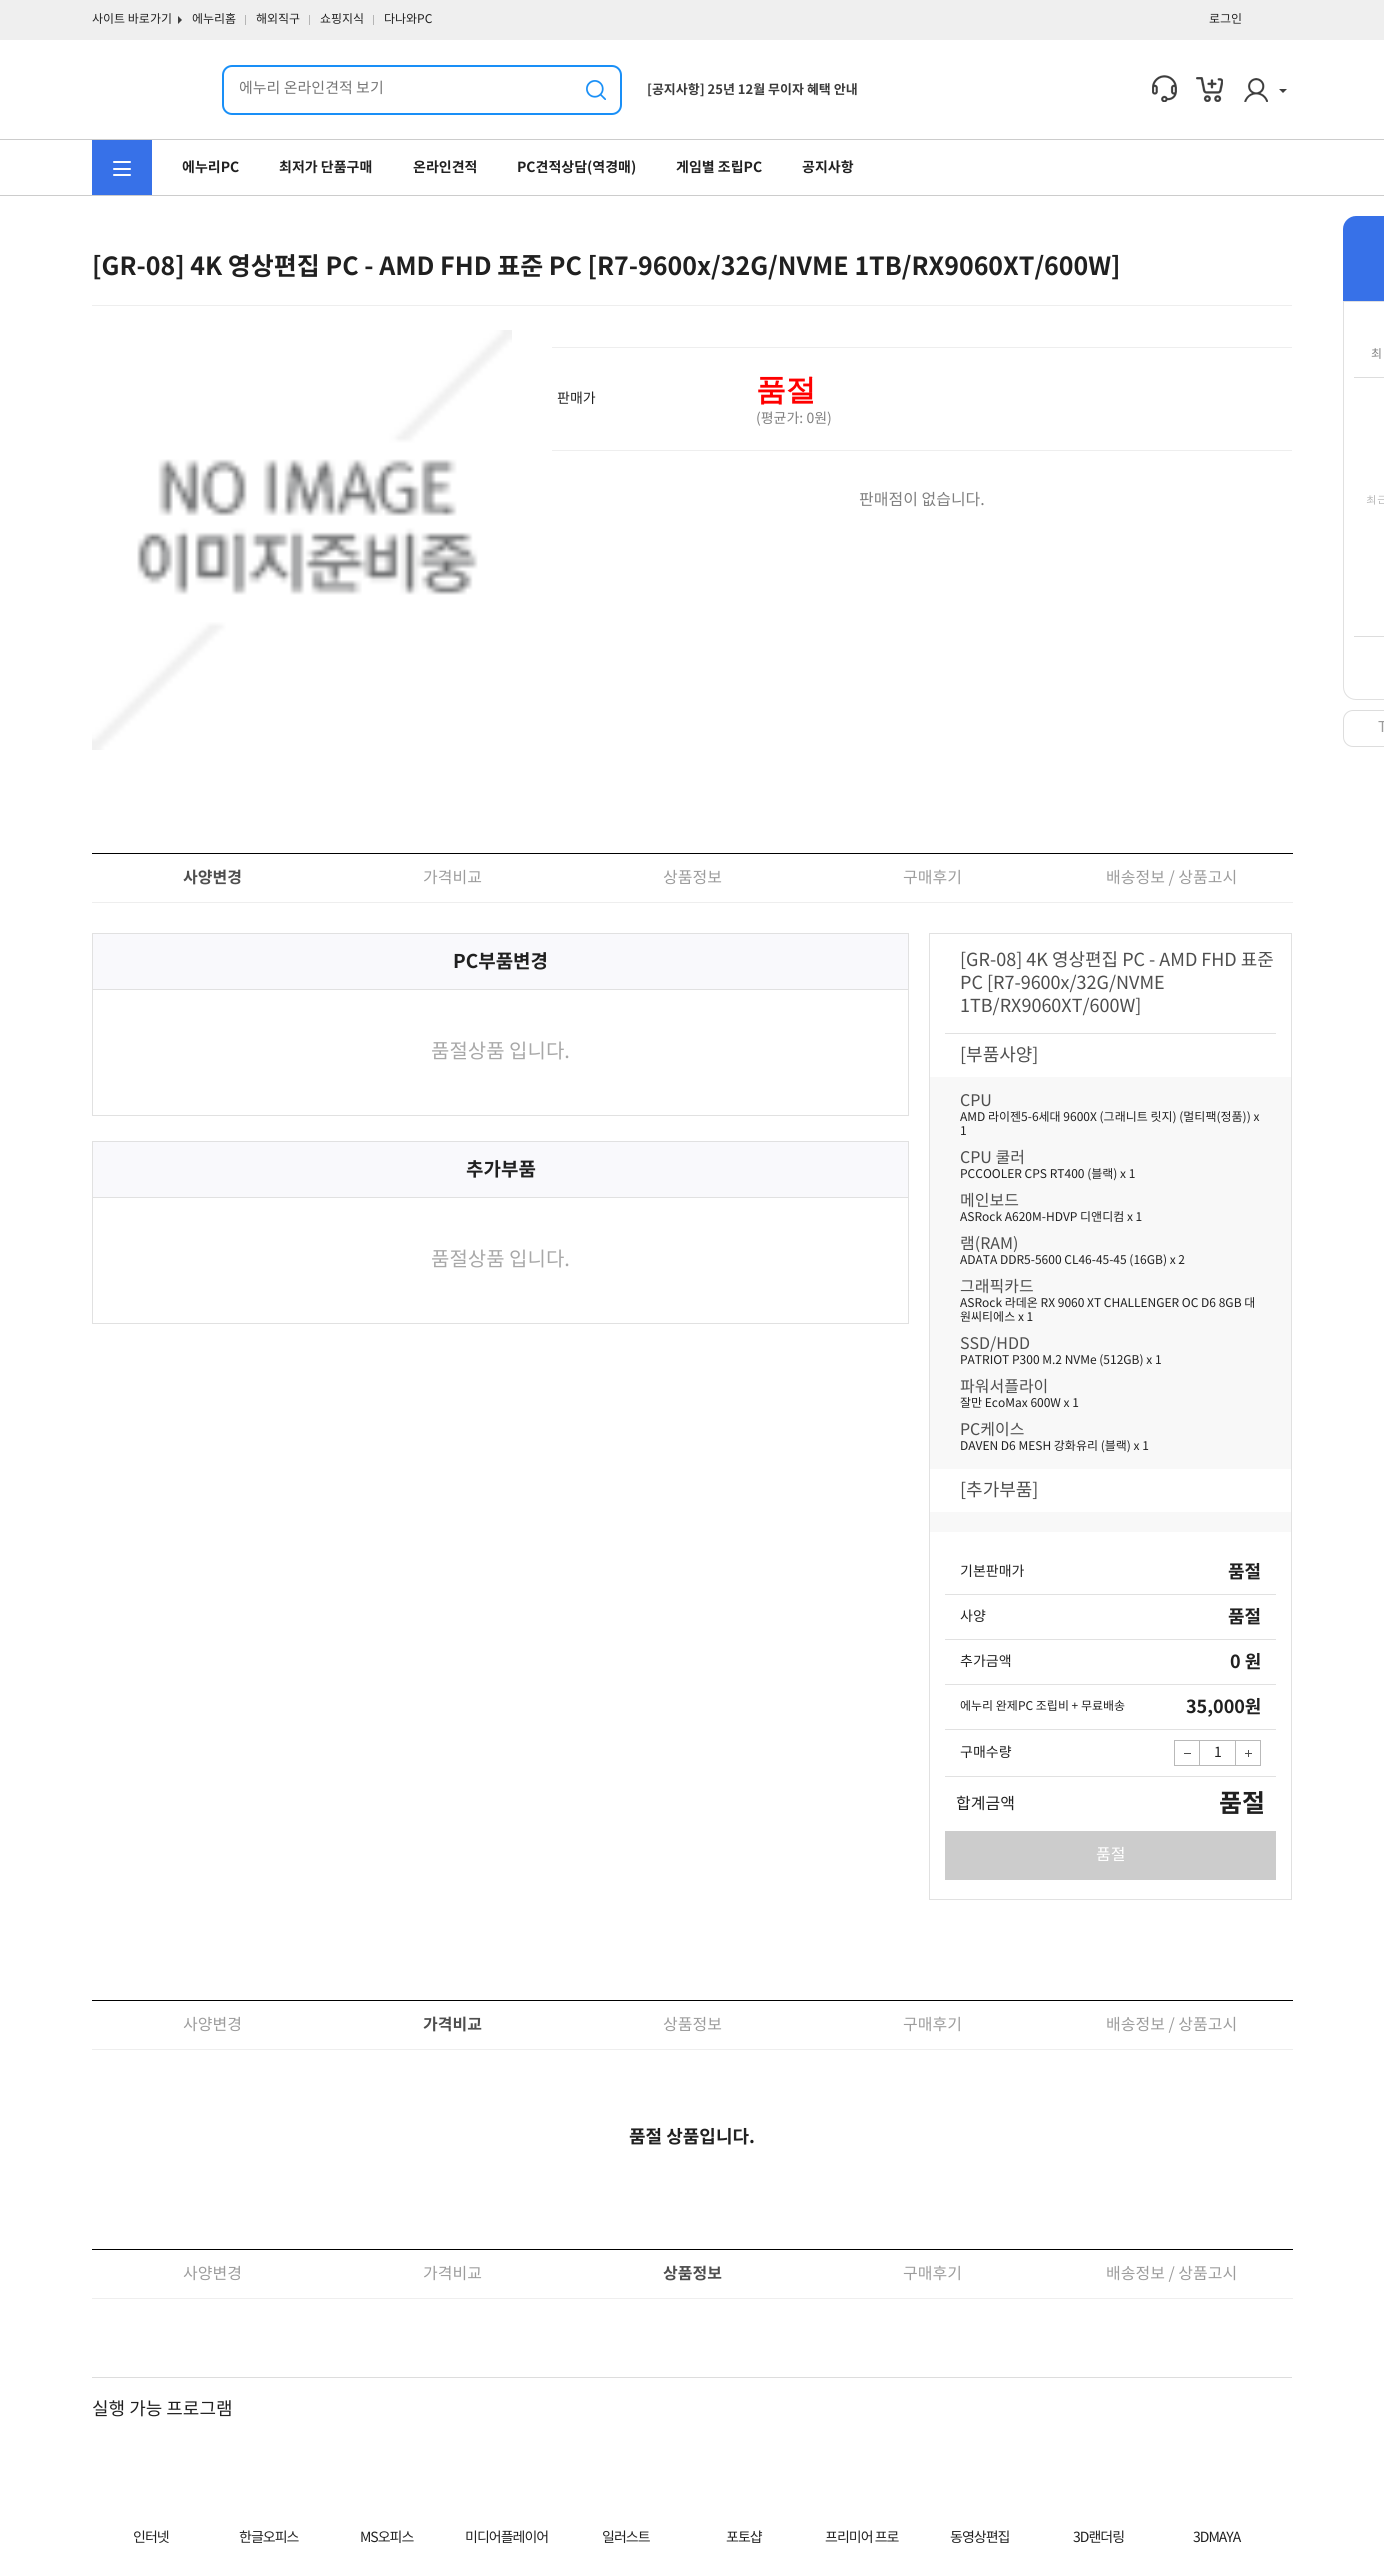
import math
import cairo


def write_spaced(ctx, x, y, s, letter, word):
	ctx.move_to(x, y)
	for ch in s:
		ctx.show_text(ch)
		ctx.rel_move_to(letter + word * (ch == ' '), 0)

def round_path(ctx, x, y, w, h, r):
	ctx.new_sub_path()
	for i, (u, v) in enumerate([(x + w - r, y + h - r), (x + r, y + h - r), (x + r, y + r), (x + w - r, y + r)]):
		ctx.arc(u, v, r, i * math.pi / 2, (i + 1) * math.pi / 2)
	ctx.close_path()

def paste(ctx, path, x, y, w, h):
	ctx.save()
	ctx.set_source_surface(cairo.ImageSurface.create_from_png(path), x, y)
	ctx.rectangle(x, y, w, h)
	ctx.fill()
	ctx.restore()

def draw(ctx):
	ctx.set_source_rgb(1, 1, 1)
	ctx.paint()
	ctx.set_source_rgb(0.937, 0.937, 0.937)
	ctx.rectangle(0, 0, 1384, 40)
	ctx.fill()
	ctx.select_font_face('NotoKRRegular')
	ctx.set_font_size(12)
	ctx.set_source_rgb(0.125, 0.125, 0.125)
	ctx.move_to(92, 23)
	ctx.show_text('사이트 바로가기')
	ctx.set_source_rgb(0.239, 0.239, 0.239)
	ctx.new_path()
	ctx.move_to(178, 24)
	ctx.line_to(178, 16)
	ctx.line_to(182, 20)
	ctx.close_path()
	ctx.fill()
	ctx.set_source_rgb(0.125, 0.125, 0.125)
	ctx.move_to(192, 23)
	ctx.show_text('에누리홈')
	ctx.set_source_rgb(0.71, 0.71, 0.71)
	ctx.rectangle(245, 15, 1, 10)
	ctx.fill()
	ctx.set_source_rgb(0.125, 0.125, 0.125)
	ctx.move_to(256, 23)
	ctx.show_text('해외직구')
	ctx.set_source_rgb(0.71, 0.71, 0.71)
	ctx.rectangle(309, 15, 1, 10)
	ctx.fill()
	ctx.set_source_rgb(0.125, 0.125, 0.125)
	ctx.move_to(320, 23)
	ctx.show_text('쇼핑지식')
	ctx.set_source_rgb(0.71, 0.71, 0.71)
	ctx.rectangle(373, 15, 1, 10)
	ctx.fill()
	ctx.set_source_rgb(0.125, 0.125, 0.125)
	ctx.move_to(384, 23)
	ctx.show_text('다나와PC')
	ctx.move_to(1209, 23)
	ctx.show_text('로그인')
	ctx.set_source_rgb(0.8, 0.8, 0.8)
	ctx.rectangle(0, 139, 1384, 1)
	ctx.fill()
	round_path(ctx, 223, 66, 398, 48, 9)
	ctx.set_source_rgb(0.098, 0.561, 0.965)
	ctx.stroke()
	ctx.set_font_size(15)
	ctx.set_source_rgb(0.459, 0.459, 0.459)
	ctx.move_to(239, 93)
	ctx.show_text('에누리 온라인견적 보기')
	paste(ctx, 'media/1.png', 586, 80, 20, 20)
	ctx.select_font_face('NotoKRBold', cairo.FONT_SLANT_NORMAL, cairo.FONT_WEIGHT_BOLD)
	ctx.set_font_size(13)
	ctx.set_source_rgb(0.231, 0.231, 0.231)
	ctx.move_to(647, 94)
	ctx.show_text('[공지사항] 25년 12월 무이자 혜택 안내')
	paste(ctx, 'media/2.png', 1152, 75, 25, 27)
	paste(ctx, 'media/3.png', 1196, 77, 27, 25)
	paste(ctx, 'media/4.png', 1244, 78, 24, 24)
	ctx.set_source_rgb(0.239, 0.239, 0.239)
	ctx.new_path()
	ctx.move_to(1279, 89)
	ctx.line_to(1287, 89)
	ctx.line_to(1283, 93)
	ctx.close_path()
	ctx.fill()
	ctx.set_source_rgb(0.8, 0.8, 0.8)
	ctx.rectangle(0, 195, 1384, 1)
	ctx.fill()
	ctx.set_source_rgb(0.216, 0.443, 0.91)
	ctx.rectangle(92, 140, 60, 55)
	ctx.fill()
	ctx.set_source_rgb(1, 1, 1)
	round_path(ctx, 113, 161, 18, 2, 1)
	ctx.fill()
	round_path(ctx, 113, 168, 18, 2, 1)
	ctx.fill()
	round_path(ctx, 113, 174, 18, 2, 1)
	ctx.fill()
	ctx.set_font_size(14)
	ctx.set_source_rgb(0.125, 0.125, 0.125)
	for x, y, s in [
		(182, 172, '에누리PC'),
		(279, 172, '최저가 단품구매'),
		(413, 172, '온라인견적'),
		(517, 172, 'PC견적상담(역경매)'),
		(676, 172, '게임별 조립PC'),
		(802, 172, '공지사항'),
	]:
		ctx.move_to(x, y)
		ctx.show_text(s)
	ctx.set_font_size(25)
	ctx.move_to(92, 275)
	ctx.show_text('[GR-08] 4K 영상편집 PC - AMD FHD 표준 PC [R7-9600x/32G/NVME 1TB/RX9060XT/600W]')
	ctx.set_source_rgb(0.933, 0.933, 0.933)
	ctx.rectangle(92, 305, 1200, 1)
	ctx.fill()
	paste(ctx, 'media/5.png', 92, 330, 420, 420)
	ctx.rectangle(552, 347, 740, 1)
	ctx.fill()
	ctx.rectangle(552, 450, 740, 1)
	ctx.fill()
	ctx.select_font_face('NotoKRRegular')
	ctx.set_font_size(14)
	ctx.set_source_rgb(0.125, 0.125, 0.125)
	ctx.move_to(557, 403)
	ctx.show_text('판매가')
	ctx.select_font_face('WenQuanYi Zen Hei', cairo.FONT_SLANT_NORMAL, cairo.FONT_WEIGHT_BOLD)
	ctx.set_font_size(30)
	ctx.set_source_rgb(1, 0, 0)
	ctx.move_to(756, 400)
	ctx.show_text('품절')
	ctx.select_font_face('NotoKRRegular')
	ctx.set_font_size(14)
	ctx.set_source_rgb(0.498, 0.498, 0.498)
	ctx.move_to(756, 423)
	ctx.show_text('(평균가: 0원)')
	ctx.set_font_size(16)
	ctx.move_to(859, 505)
	ctx.show_text('판매점이 없습니다.')
	ctx.set_source_rgb(0, 0, 0)
	ctx.rectangle(92, 853, 1201, 1)
	ctx.fill()
	ctx.set_source_rgb(0.933, 0.933, 0.933)
	ctx.rectangle(92, 902, 1201, 1)
	ctx.fill()
	ctx.select_font_face('NotoKRBold', cairo.FONT_SLANT_NORMAL, cairo.FONT_WEIGHT_BOLD)
	ctx.set_source_rgb(0.306, 0.306, 0.306)
	ctx.move_to(183, 883)
	ctx.show_text('사양변경')
	ctx.select_font_face('NotoKRRegular')
	ctx.set_source_rgb(0.612, 0.612, 0.612)
	for x, y, s in [
		(423, 883, '가격비교'),
		(663, 883, '상품정보'),
		(903, 883, '구매후기'),
		(1106, 883, '배송정보 / 상품고시'),
	]:
		ctx.move_to(x, y)
		ctx.show_text(s)
	ctx.set_source_rgb(0.976, 0.976, 0.988)
	ctx.rectangle(92.5, 933.5, 816, 56)
	ctx.fill_preserve()
	ctx.set_source_rgb(0.882, 0.882, 0.882)
	ctx.set_line_width(1)
	ctx.stroke()
	ctx.select_font_face('NotoKRBold', cairo.FONT_SLANT_NORMAL, cairo.FONT_WEIGHT_BOLD)
	ctx.set_font_size(19)
	ctx.set_source_rgb(0.125, 0.125, 0.125)
	ctx.move_to(453, 968)
	ctx.show_text('PC부품변경')
	ctx.set_source_rgb(0.882, 0.882, 0.882)
	ctx.rectangle(908, 990, 1, 126)
	ctx.rectangle(92, 1115, 817, 1)
	ctx.rectangle(92, 990, 1, 126)
	ctx.fill()
	ctx.select_font_face('NotoKRRegular')
	ctx.set_font_size(20)
	ctx.set_source_rgb(0.659, 0.659, 0.659)
	ctx.move_to(431, 1058)
	ctx.show_text('품절상품 입니다.')
	ctx.set_source_rgb(0.976, 0.976, 0.988)
	ctx.rectangle(92.5, 1141.5, 816, 56)
	ctx.fill_preserve()
	ctx.set_source_rgb(0.882, 0.882, 0.882)
	ctx.stroke()
	ctx.select_font_face('NotoKRBold', cairo.FONT_SLANT_NORMAL, cairo.FONT_WEIGHT_BOLD)
	ctx.set_font_size(19)
	ctx.set_source_rgb(0.125, 0.125, 0.125)
	ctx.move_to(466, 1176)
	ctx.show_text('추가부품')
	ctx.set_source_rgb(0.882, 0.882, 0.882)
	ctx.rectangle(908, 1198, 1, 126)
	ctx.rectangle(92, 1323, 817, 1)
	ctx.rectangle(92, 1198, 1, 126)
	ctx.fill()
	ctx.select_font_face('NotoKRRegular')
	ctx.set_font_size(20)
	ctx.set_source_rgb(0.659, 0.659, 0.659)
	ctx.move_to(431, 1266)
	ctx.show_text('품절상품 입니다.')
	ctx.rectangle(929.5, 933.5, 362, 966)
	ctx.set_source_rgb(0.882, 0.882, 0.882)
	ctx.stroke()
	ctx.rectangle(945, 1033, 331, 1)
	ctx.fill()
	ctx.set_font_size(18)
	ctx.set_source_rgb(0.306, 0.306, 0.306)
	for x, y, s in [
		(960, 966, '[GR-08] 4K 영상편집 PC - AMD FHD 표준'),
		(960, 989, 'PC [R7-9600x/32G/NVME'),
		(960, 1012, '1TB/RX9060XT/600W]'),
		(960, 1061, '[부품사양]'),
	]:
		ctx.move_to(x, y)
		ctx.show_text(s)
	ctx.set_source_rgb(0.969, 0.969, 0.969)
	ctx.rectangle(930, 1077, 361, 392)
	ctx.fill()
	ctx.set_font_size(16)
	ctx.set_source_rgb(0.306, 0.306, 0.306)
	ctx.move_to(960, 1106)
	ctx.show_text('CPU')
	ctx.set_font_size(12)
	ctx.set_source_rgb(0.125, 0.125, 0.125)
	ctx.move_to(960, 1121)
	ctx.show_text('AMD 라이젠5-6세대 9600X (그래니트 릿지) (멀티팩(정품)) x')
	ctx.move_to(960, 1135)
	ctx.show_text('1')
	ctx.set_font_size(16)
	ctx.set_source_rgb(0.306, 0.306, 0.306)
	ctx.move_to(960, 1163)
	ctx.show_text('CPU 쿨러')
	ctx.set_font_size(12)
	ctx.set_source_rgb(0.125, 0.125, 0.125)
	ctx.move_to(960, 1178)
	ctx.show_text('PCCOOLER CPS RT400 (블랙) x 1')
	ctx.set_font_size(16)
	ctx.set_source_rgb(0.306, 0.306, 0.306)
	ctx.move_to(960, 1206)
	ctx.show_text('메인보드')
	ctx.set_font_size(12)
	ctx.set_source_rgb(0.125, 0.125, 0.125)
	ctx.move_to(960, 1221)
	ctx.show_text('ASRock A620M-HDVP 디앤디컴 x 1')
	ctx.set_font_size(16)
	ctx.set_source_rgb(0.306, 0.306, 0.306)
	ctx.move_to(960, 1249)
	ctx.show_text('램(RAM)')
	ctx.set_font_size(12)
	ctx.set_source_rgb(0.125, 0.125, 0.125)
	ctx.move_to(960, 1264)
	ctx.show_text('ADATA DDR5-5600 CL46-45-45 (16GB) x 2')
	ctx.set_font_size(16)
	ctx.set_source_rgb(0.306, 0.306, 0.306)
	ctx.move_to(960, 1292)
	ctx.show_text('그래픽카드')
	ctx.set_font_size(12)
	ctx.set_source_rgb(0.125, 0.125, 0.125)
	ctx.move_to(960, 1307)
	ctx.show_text('ASRock 라데온 RX 9060 XT CHALLENGER OC D6 8GB 대')
	ctx.move_to(960, 1321)
	ctx.show_text('원씨티에스 x 1')
	ctx.set_font_size(16)
	ctx.set_source_rgb(0.306, 0.306, 0.306)
	ctx.move_to(960, 1349)
	ctx.show_text('SSD/HDD')
	ctx.set_font_size(12)
	ctx.set_source_rgb(0.125, 0.125, 0.125)
	ctx.move_to(960, 1364)
	ctx.show_text('PATRIOT P300 M.2 NVMe (512GB) x 1')
	ctx.set_font_size(16)
	ctx.set_source_rgb(0.306, 0.306, 0.306)
	ctx.move_to(960, 1392)
	ctx.show_text('파워서플라이')
	ctx.set_font_size(12)
	ctx.set_source_rgb(0.125, 0.125, 0.125)
	ctx.move_to(960, 1407)
	ctx.show_text('잘만 EcoMax 600W x 1')
	ctx.set_font_size(16)
	ctx.set_source_rgb(0.306, 0.306, 0.306)
	ctx.move_to(960, 1435)
	ctx.show_text('PC케이스')
	ctx.set_font_size(12)
	ctx.set_source_rgb(0.125, 0.125, 0.125)
	ctx.move_to(960, 1450)
	ctx.show_text('DAVEN D6 MESH 강화유리 (블랙) x 1')
	ctx.set_font_size(18)
	ctx.set_source_rgb(0.306, 0.306, 0.306)
	ctx.move_to(960, 1496)
	ctx.show_text('[추가부품]')
	ctx.set_source_rgb(0.969, 0.969, 0.969)
	ctx.rectangle(930, 1512, 361, 20)
	ctx.fill()
	ctx.set_source_rgb(0.882, 0.882, 0.882)
	ctx.rectangle(945, 1594, 331, 1)
	ctx.fill()
	ctx.set_font_size(14)
	ctx.set_source_rgb(0.125, 0.125, 0.125)
	ctx.move_to(960, 1576)
	ctx.show_text('기본판매가')
	ctx.select_font_face('NotoKRBold', cairo.FONT_SLANT_NORMAL, cairo.FONT_WEIGHT_BOLD)
	ctx.set_font_size(18)
	ctx.move_to(1228, 1578)
	ctx.show_text('품절')
	ctx.set_source_rgb(0.882, 0.882, 0.882)
	ctx.rectangle(945, 1639, 331, 1)
	ctx.fill()
	ctx.select_font_face('NotoKRRegular')
	ctx.set_font_size(14)
	ctx.set_source_rgb(0.125, 0.125, 0.125)
	ctx.move_to(960, 1621)
	ctx.show_text('사양')
	ctx.select_font_face('NotoKRBold', cairo.FONT_SLANT_NORMAL, cairo.FONT_WEIGHT_BOLD)
	ctx.set_font_size(18)
	ctx.move_to(1228, 1623)
	ctx.show_text('품절')
	ctx.set_source_rgb(0.882, 0.882, 0.882)
	ctx.rectangle(945, 1684, 331, 1)
	ctx.fill()
	ctx.select_font_face('NotoKRRegular')
	ctx.set_font_size(14)
	ctx.set_source_rgb(0.125, 0.125, 0.125)
	ctx.move_to(960, 1666)
	ctx.show_text('추가금액')
	ctx.select_font_face('NotoKRBold', cairo.FONT_SLANT_NORMAL, cairo.FONT_WEIGHT_BOLD)
	ctx.set_font_size(18)
	ctx.move_to(1230, 1668)
	ctx.show_text('0 원')
	ctx.set_source_rgb(0.882, 0.882, 0.882)
	ctx.rectangle(945, 1729, 331, 1)
	ctx.fill()
	ctx.select_font_face('NotoKRRegular')
	ctx.set_font_size(12)
	ctx.set_source_rgb(0.125, 0.125, 0.125)
	ctx.move_to(960, 1710)
	ctx.show_text('에누리 완제PC 조립비 + 무료배송')
	ctx.select_font_face('NotoKRBold', cairo.FONT_SLANT_NORMAL, cairo.FONT_WEIGHT_BOLD)
	ctx.set_font_size(18)
	ctx.move_to(1186, 1713)
	ctx.show_text('35,000원')
	ctx.select_font_face('NotoKRRegular')
	ctx.set_font_size(14)
	ctx.move_to(960, 1757)
	ctx.show_text('구매수량')
	ctx.rectangle(1174.5, 1740.5, 25, 25)
	ctx.set_source_rgb(0.725, 0.725, 0.725)
	ctx.stroke()
	ctx.set_source_rgb(0.306, 0.306, 0.306)
	ctx.rectangle(1184, 1753, 7, 1)
	ctx.fill()
	ctx.set_source_rgb(0.725, 0.725, 0.725)
	ctx.rectangle(1200, 1740, 35, 1)
	ctx.rectangle(1200, 1765, 35, 1)
	ctx.fill()
	ctx.set_source_rgb(0.125, 0.125, 0.125)
	ctx.move_to(1214, 1757)
	ctx.show_text('1')
	ctx.rectangle(1235.5, 1740.5, 25, 25)
	ctx.set_source_rgb(0.725, 0.725, 0.725)
	ctx.stroke()
	ctx.set_source_rgb(0.306, 0.306, 0.306)
	ctx.rectangle(1248, 1750, 1, 7)
	ctx.rectangle(1245, 1753, 7, 1)
	ctx.fill()
	ctx.set_source_rgb(0.882, 0.882, 0.882)
	ctx.rectangle(945, 1776, 331, 1)
	ctx.fill()
	ctx.set_font_size(16)
	ctx.set_source_rgb(0.125, 0.125, 0.125)
	ctx.move_to(956, 1809)
	ctx.show_text('합계금액')
	ctx.select_font_face('NotoKRBold', cairo.FONT_SLANT_NORMAL, cairo.FONT_WEIGHT_BOLD)
	ctx.set_font_size(25)
	ctx.move_to(1219, 1812)
	ctx.show_text('품절')
	ctx.set_source_rgb(0.8, 0.8, 0.8)
	ctx.rectangle(945, 1831, 331, 49)
	ctx.fill()
	ctx.select_font_face('NotoKRRegular')
	ctx.set_font_size(16)
	ctx.set_source_rgb(1, 1, 1)
	ctx.move_to(1096, 1860)
	ctx.show_text('품절')
	ctx.set_source_rgb(0, 0, 0)
	ctx.rectangle(92, 2000, 1201, 1)
	ctx.fill()
	ctx.set_source_rgb(0.933, 0.933, 0.933)
	ctx.rectangle(92, 2049, 1201, 1)
	ctx.fill()
	ctx.set_source_rgb(0.612, 0.612, 0.612)
	ctx.move_to(183, 2030)
	ctx.show_text('사양변경')
	ctx.select_font_face('NotoKRBold', cairo.FONT_SLANT_NORMAL, cairo.FONT_WEIGHT_BOLD)
	ctx.set_source_rgb(0.306, 0.306, 0.306)
	ctx.move_to(423, 2030)
	ctx.show_text('가격비교')
	ctx.select_font_face('NotoKRRegular')
	ctx.set_source_rgb(0.612, 0.612, 0.612)
	for x, y, s in [
		(663, 2030, '상품정보'),
		(903, 2030, '구매후기'),
		(1106, 2030, '배송정보 / 상품고시'),
	]:
		ctx.move_to(x, y)
		ctx.show_text(s)
	ctx.select_font_face('NotoKRBold', cairo.FONT_SLANT_NORMAL, cairo.FONT_WEIGHT_BOLD)
	ctx.set_font_size(18)
	ctx.set_source_rgb(0.125, 0.125, 0.125)
	ctx.move_to(629, 2143)
	ctx.show_text('품절 상품입니다.')
	ctx.set_source_rgb(0, 0, 0)
	ctx.rectangle(92, 2249, 1201, 1)
	ctx.fill()
	ctx.set_source_rgb(0.933, 0.933, 0.933)
	ctx.rectangle(92, 2298, 1201, 1)
	ctx.fill()
	ctx.select_font_face('NotoKRRegular')
	ctx.set_font_size(16)
	ctx.set_source_rgb(0.612, 0.612, 0.612)
	ctx.move_to(183, 2279)
	ctx.show_text('사양변경')
	ctx.move_to(423, 2279)
	ctx.show_text('가격비교')
	ctx.select_font_face('NotoKRBold', cairo.FONT_SLANT_NORMAL, cairo.FONT_WEIGHT_BOLD)
	ctx.set_source_rgb(0.306, 0.306, 0.306)
	ctx.move_to(663, 2279)
	ctx.show_text('상품정보')
	ctx.select_font_face('NotoKRRegular')
	ctx.set_source_rgb(0.612, 0.612, 0.612)
	ctx.move_to(903, 2279)
	ctx.show_text('구매후기')
	ctx.move_to(1106, 2279)
	ctx.show_text('배송정보 / 상품고시')
	ctx.set_source_rgb(0.867, 0.867, 0.867)
	ctx.rectangle(92, 2377, 1200, 1)
	ctx.fill()
	ctx.set_font_size(18)
	ctx.set_source_rgb(0.125, 0.125, 0.125)
	ctx.move_to(92, 2415)
	ctx.show_text('실행 가능 프로그램')
	ctx.set_font_size(14)
	for x, y, s in [
		(133, 2542, '인터넷'),
		(239, 2542, '한글오피스'),
		(360, 2542, 'MS오피스'),
		(465, 2542, '미디어플레이어'),
		(602, 2542, '일러스트'),
		(726, 2542, '포토샵'),
		(825, 2542, '프리미어 프로'),
		(950, 2542, '동영상편집'),
		(1073, 2542, '3D랜더링'),
		(1193, 2542, '3DMAYA'),
	]:
		write_spaced(ctx, x, y, s, -1, 0)
	ctx.set_source_rgb(0.216, 0.443, 0.91)
	ctx.new_path()
	ctx.move_to(1356, 216)
	ctx.line_to(1384, 216)
	ctx.curve_to(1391, 216, 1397, 222, 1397, 229)
	ctx.line_to(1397, 301)
	ctx.line_to(1343, 301)
	ctx.line_to(1343, 229)
	ctx.curve_to(1343, 222, 1349, 216, 1356, 216)
	ctx.close_path()
	ctx.fill()
	ctx.new_path()
	ctx.move_to(1343.5, 301.5)
	ctx.line_to(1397.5, 301.5)
	ctx.line_to(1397.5, 687)
	ctx.curve_to(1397.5, 694, 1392, 699.5, 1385, 699.5)
	ctx.line_to(1356, 699.5)
	ctx.curve_to(1349, 699.5, 1343.5, 694, 1343.5, 687)
	ctx.close_path()
	ctx.set_source_rgb(0.878, 0.878, 0.878)
	ctx.stroke()
	ctx.set_font_size(12)
	ctx.set_source_rgb(0.498, 0.498, 0.498)
	ctx.move_to(1371, 358)
	ctx.show_text('최')
	ctx.set_source_rgb(0.867, 0.867, 0.867)
	ctx.rectangle(1354, 377, 30, 1)
	ctx.fill()
	ctx.rectangle(1354, 636, 30, 1)
	ctx.fill()
	ctx.select_font_face('Dotum')
	ctx.set_font_size(11)
	ctx.set_source_rgb(0.659, 0.659, 0.659)
	ctx.move_to(1366, 504)
	ctx.show_text('최근')
	round_path(ctx, 1343.5, 710.5, 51, 36, 9.5)
	ctx.set_source_rgb(0.867, 0.867, 0.867)
	ctx.stroke()
	ctx.select_font_face('NotoKRRegular')
	ctx.set_font_size(15)
	ctx.set_source_rgb(0.612, 0.612, 0.612)
	ctx.move_to(1378, 732)
	ctx.show_text('T')


surface = cairo.ImageSurface(cairo.FORMAT_RGB24, 1384, 2574)
ctx = cairo.Context(surface)
options = cairo.FontOptions()
options.set_hint_metrics(cairo.HINT_METRICS_OFF)
options.set_hint_style(cairo.HINT_STYLE_NONE)
ctx.set_font_options(options)
ctx.set_miter_limit(4)
draw(ctx)
surface.write_to_png('image.png')
